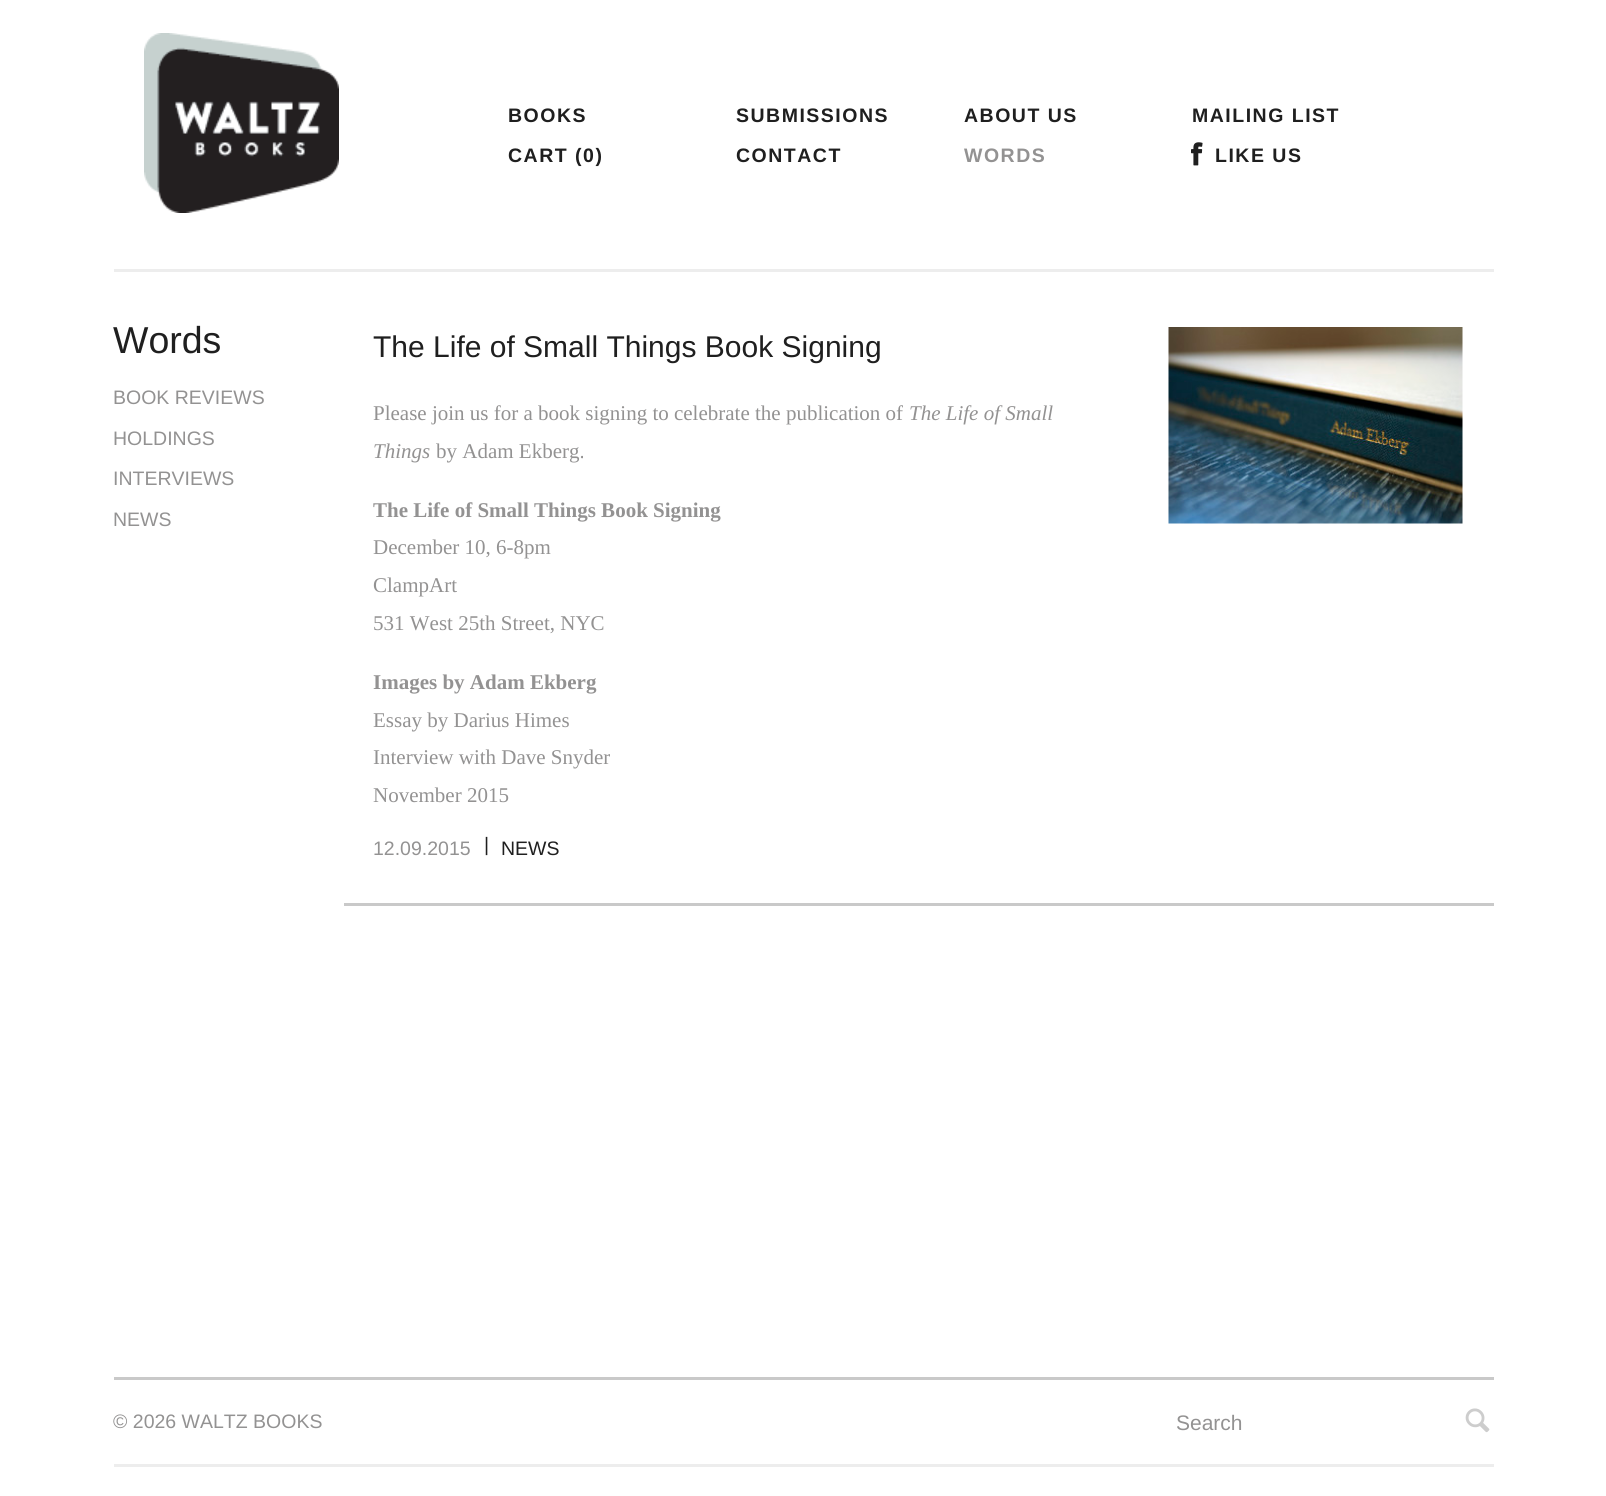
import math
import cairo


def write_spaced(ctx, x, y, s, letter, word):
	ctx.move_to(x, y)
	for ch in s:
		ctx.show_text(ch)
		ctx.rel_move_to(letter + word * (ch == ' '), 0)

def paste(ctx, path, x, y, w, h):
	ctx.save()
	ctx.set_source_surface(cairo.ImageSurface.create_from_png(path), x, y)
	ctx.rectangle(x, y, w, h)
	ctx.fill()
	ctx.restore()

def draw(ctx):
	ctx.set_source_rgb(1, 1, 1)
	ctx.paint()
	ctx.set_source_rgb(0.929, 0.929, 0.929)
	ctx.rectangle(114, 269, 1380, 3)
	ctx.fill()
	paste(ctx, 'media/1.png', 144, 33, 195, 180)
	ctx.select_font_face('Liberation Sans', cairo.FONT_SLANT_NORMAL, cairo.FONT_WEIGHT_BOLD)
	ctx.set_font_size(19.5)
	ctx.set_source_rgb(0.122, 0.122, 0.122)
	for x, y, s in [
		(508, 122, 'BOOKS'),
		(736, 122, 'SUBMISSIONS'),
		(964, 122, 'ABOUT US'),
		(1192, 122, 'MAILING LIST'),
		(508, 162, 'CART (0)'),
		(736, 162, 'CONTACT'),
	]:
		write_spaced(ctx, x, y, s, 1.5, 0)
	ctx.set_source_rgb(0.576, 0.573, 0.573)
	write_spaced(ctx, 964, 162, 'WORDS', 1.5, 0)
	paste(ctx, 'media/2.png', 1191, 142, 12, 24)
	ctx.set_source_rgb(0.122, 0.122, 0.122)
	write_spaced(ctx, 1215, 162, 'LIKE US', 1.5, 0)
	ctx.select_font_face('Liberation Sans')
	ctx.set_font_size(37.5)
	ctx.move_to(113, 353)
	ctx.show_text('Words')
	ctx.set_font_size(19.5)
	ctx.set_source_rgb(0.576, 0.573, 0.573)
	for x, y, s in [
		(113, 404, 'BOOK REVIEWS'),
		(113, 445, 'HOLDINGS'),
		(113, 485, 'INTERVIEWS'),
		(113, 526, 'NEWS'),
	]:
		ctx.move_to(x, y)
		ctx.show_text(s)
	ctx.set_source_rgb(0.788, 0.788, 0.788)
	ctx.rectangle(344, 903, 1150, 3)
	ctx.fill()
	ctx.set_font_size(30)
	ctx.set_source_rgb(0.122, 0.122, 0.122)
	ctx.move_to(373, 357)
	ctx.show_text('The Life of Small Things Book Signing')
	ctx.select_font_face('Liberation Serif')
	ctx.set_font_size(21)
	ctx.set_source_rgb(0.576, 0.573, 0.573)
	ctx.move_to(373, 420)
	ctx.show_text('Please join us for a book signing to celebrate the publication of')
	ctx.select_font_face('Liberation Serif', cairo.FONT_SLANT_ITALIC)
	ctx.move_to(909, 420)
	ctx.show_text('The Life of Small')
	ctx.move_to(373, 458)
	ctx.show_text('Things')
	ctx.select_font_face('Liberation Serif')
	ctx.move_to(436, 458)
	ctx.show_text('by Adam Ekberg.')
	ctx.select_font_face('Liberation Serif', cairo.FONT_SLANT_NORMAL, cairo.FONT_WEIGHT_BOLD)
	ctx.move_to(373, 517)
	ctx.show_text('The Life of Small Things Book Signing')
	ctx.select_font_face('Liberation Serif')
	for x, y, s in [
		(373, 554, 'December 10, 6-8pm'),
		(373, 592, 'ClampArt'),
		(373, 630, '531 West 25th Street, NYC'),
	]:
		ctx.move_to(x, y)
		ctx.show_text(s)
	ctx.select_font_face('Liberation Serif', cairo.FONT_SLANT_NORMAL, cairo.FONT_WEIGHT_BOLD)
	ctx.move_to(373, 689)
	ctx.show_text('Images by Adam Ekberg')
	ctx.select_font_face('Liberation Serif')
	for x, y, s in [
		(373, 727, 'Essay by Darius Himes'),
		(373, 764, 'Interview with Dave Snyder'),
		(373, 802, 'November 2015'),
	]:
		ctx.move_to(x, y)
		ctx.show_text(s)
	ctx.select_font_face('Liberation Sans')
	ctx.set_font_size(19.5)
	ctx.move_to(373, 855)
	ctx.show_text('12.09.2015')
	ctx.set_source_rgb(0.122, 0.122, 0.122)
	ctx.move_to(484, 851)
	ctx.show_text('|')
	ctx.move_to(501, 855)
	ctx.show_text('NEWS')
	paste(ctx, 'media/3.png', 1168, 327, 295, 197)
	ctx.set_source_rgb(0.788, 0.788, 0.788)
	ctx.rectangle(114, 1377, 1380, 3)
	ctx.fill()
	ctx.set_source_rgb(0.929, 0.929, 0.929)
	ctx.rectangle(114, 1464, 1380, 3)
	ctx.fill()
	ctx.set_source_rgb(0.576, 0.573, 0.573)
	ctx.move_to(113, 1428)
	ctx.show_text('© 2026 WALTZ BOOKS')
	ctx.set_font_size(21)
	ctx.move_to(1176, 1430)
	ctx.show_text('Search')
	paste(ctx, 'media/4.png', 1465, 1408, 25, 25)


surface = cairo.ImageSurface(cairo.FORMAT_RGB24, 1606, 1496)
ctx = cairo.Context(surface)
options = cairo.FontOptions()
options.set_hint_metrics(cairo.HINT_METRICS_OFF)
options.set_hint_style(cairo.HINT_STYLE_NONE)
ctx.set_font_options(options)
ctx.set_miter_limit(4)
draw(ctx)
surface.write_to_png('image.png')
